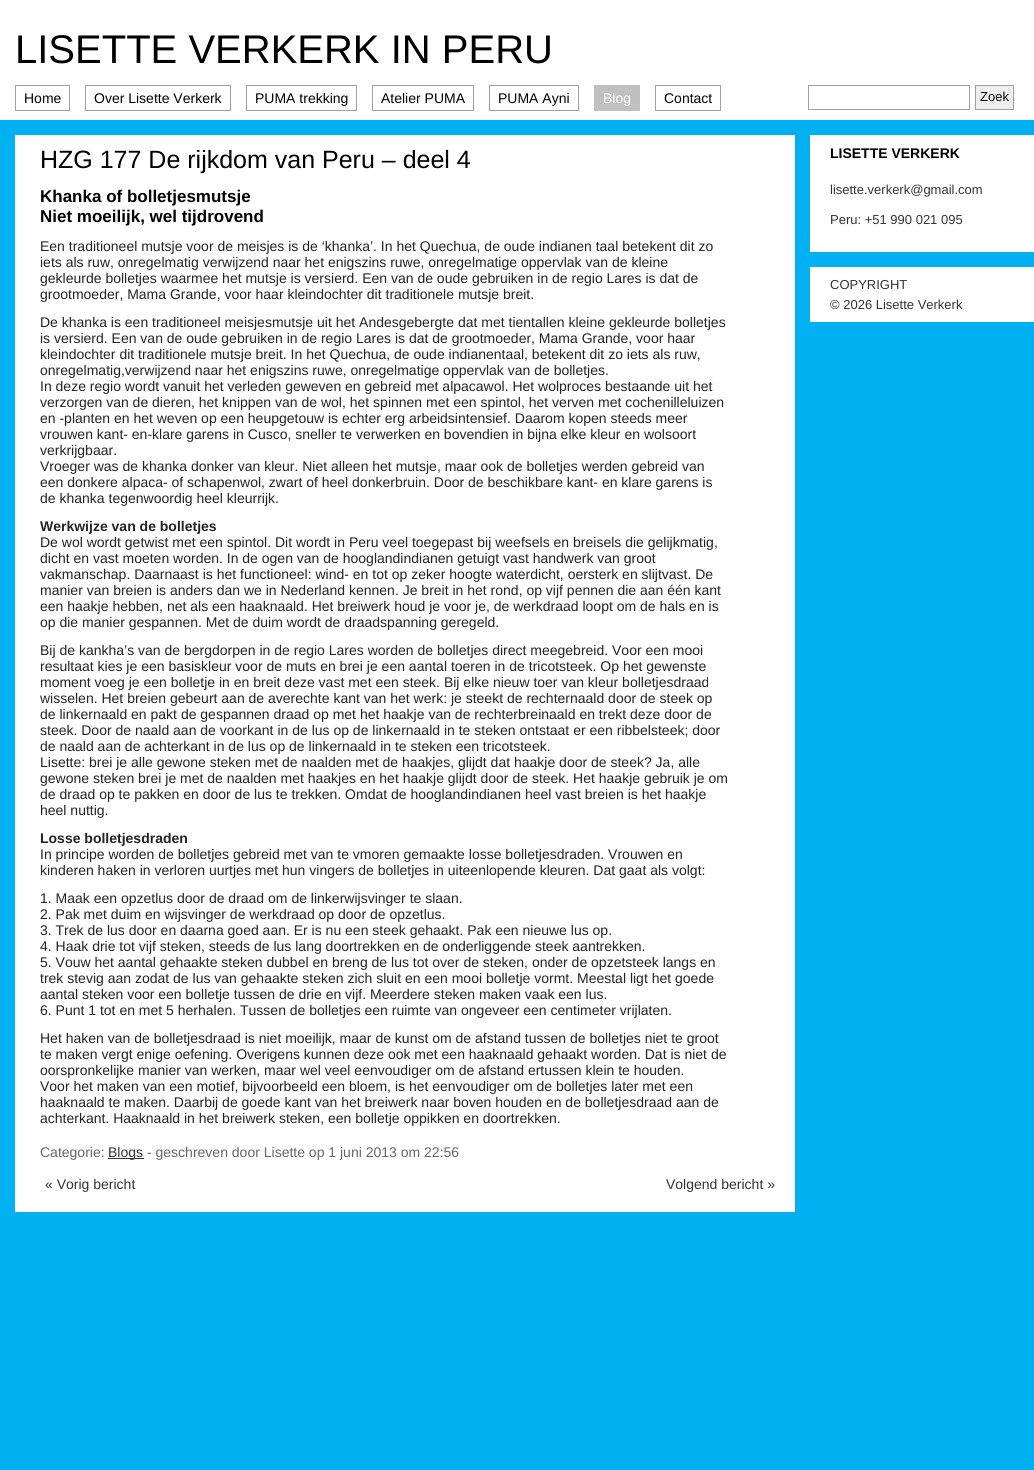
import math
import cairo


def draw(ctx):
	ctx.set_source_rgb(0.004, 0.69, 0.941)
	ctx.paint()
	ctx.set_source_rgb(1, 1, 1)
	ctx.rectangle(0, 0, 1034, 120)
	ctx.fill()
	ctx.select_font_face('Liberation Sans')
	ctx.set_font_size(40)
	ctx.set_source_rgb(0, 0, 0)
	ctx.move_to(15, 63)
	ctx.show_text('LISETTE VERKERK IN PERU')
	ctx.rectangle(15.5, 85.5, 54, 25)
	ctx.set_source_rgb(0.627, 0.627, 0.627)
	ctx.set_line_width(1)
	ctx.stroke()
	ctx.set_font_size(14)
	ctx.set_source_rgb(0, 0, 0)
	ctx.move_to(24, 103)
	ctx.show_text('Home')
	ctx.rectangle(85.5, 85.5, 145, 25)
	ctx.set_source_rgb(0.627, 0.627, 0.627)
	ctx.stroke()
	ctx.set_source_rgb(0, 0, 0)
	ctx.move_to(94, 103)
	ctx.show_text('Over Lisette Verkerk')
	ctx.rectangle(246.5, 85.5, 110, 25)
	ctx.set_source_rgb(0.627, 0.627, 0.627)
	ctx.stroke()
	ctx.set_source_rgb(0, 0, 0)
	ctx.move_to(255, 103)
	ctx.show_text('PUMA trekking')
	ctx.rectangle(372.5, 85.5, 101, 25)
	ctx.set_source_rgb(0.627, 0.627, 0.627)
	ctx.stroke()
	ctx.set_source_rgb(0, 0, 0)
	ctx.move_to(381, 103)
	ctx.show_text('Atelier PUMA')
	ctx.rectangle(489.5, 85.5, 89, 25)
	ctx.set_source_rgb(0.627, 0.627, 0.627)
	ctx.stroke()
	ctx.set_source_rgb(0, 0, 0)
	ctx.move_to(498, 103)
	ctx.show_text('PUMA Ayni')
	ctx.set_source_rgb(0.753, 0.753, 0.753)
	ctx.rectangle(594, 85, 46, 26)
	ctx.fill()
	ctx.set_source_rgb(1, 1, 1)
	ctx.move_to(603, 103)
	ctx.show_text('Blog')
	ctx.rectangle(655.5, 85.5, 65, 25)
	ctx.set_source_rgb(0.627, 0.627, 0.627)
	ctx.stroke()
	ctx.set_source_rgb(0, 0, 0)
	ctx.move_to(664, 103)
	ctx.show_text('Contact')
	ctx.rectangle(808.5, 85.5, 161, 24)
	ctx.set_source_rgb(0.627, 0.627, 0.627)
	ctx.stroke()
	ctx.set_source_rgb(0.937, 0.937, 0.937)
	ctx.rectangle(975.5, 85.5, 38, 24)
	ctx.fill_preserve()
	ctx.set_source_rgb(0.627, 0.627, 0.627)
	ctx.stroke()
	ctx.set_font_size(13)
	ctx.set_source_rgb(0, 0, 0)
	ctx.move_to(980, 101)
	ctx.show_text('Zoek')
	ctx.set_source_rgb(1, 1, 1)
	ctx.rectangle(15, 135, 780, 1077)
	ctx.fill()
	ctx.set_font_size(25)
	ctx.set_source_rgb(0, 0, 0)
	ctx.move_to(40, 168)
	ctx.show_text('HZG 177 De rijkdom van Peru – deel 4')
	ctx.select_font_face('Liberation Sans', cairo.FONT_SLANT_NORMAL, cairo.FONT_WEIGHT_BOLD)
	ctx.set_font_size(17)
	ctx.move_to(40, 202)
	ctx.show_text('Khanka of bolletjesmutsje')
	ctx.move_to(40, 222)
	ctx.show_text('Niet moeilijk, wel tijdrovend')
	ctx.select_font_face('Liberation Sans')
	ctx.set_font_size(14)
	ctx.set_source_rgb(0.137, 0.137, 0.137)
	for x, y, s in [
		(40, 251, 'Een traditioneel mutsje voor de meisjes is de ‘khanka’. In het Quechua, de oude indianen taal betekent dit zo'),
		(40, 267, 'iets als ruw, onregelmatig verwijzend naar het enigszins ruwe, onregelmatige oppervlak van de kleine'),
		(40, 283, 'gekleurde bolletjes waarmee het mutsje is versierd. Een van de oude gebruiken in de regio Lares is dat de'),
		(40, 299, 'grootmoeder, Mama Grande, voor haar kleindochter dit traditionele mutsje breit.'),
		(40, 327, 'De khanka is een traditioneel meisjesmutsje uit het Andesgebergte dat met tientallen kleine gekleurde bolletjes'),
		(40, 343, 'is versierd. Een van de oude gebruiken in de regio Lares is dat de grootmoeder, Mama Grande, voor haar'),
		(40, 359, 'kleindochter dit traditionele mutsje breit. In het Quechua, de oude indianentaal, betekent dit zo iets als ruw,'),
		(40, 375, 'onregelmatig,verwijzend naar het enigszins ruwe, onregelmatige oppervlak van de bolletjes.'),
		(40, 391, 'In deze regio wordt vanuit het verleden geweven en gebreid met alpacawol. Het wolproces bestaande uit het'),
		(40, 407, 'verzorgen van de dieren, het knippen van de wol, het spinnen met een spintol, het verven met cochenilleluizen'),
		(40, 423, 'en -planten en het weven op een heupgetouw is echter erg arbeidsintensief. Daarom kopen steeds meer'),
		(40, 439, 'vrouwen kant- en-klare garens in Cusco, sneller te verwerken en bovendien in bijna elke kleur en wolsoort'),
		(40, 455, 'verkrijgbaar.'),
		(40, 471, 'Vroeger was de khanka donker van kleur. Niet alleen het mutsje, maar ook de bolletjes werden gebreid van'),
		(40, 487, 'een donkere alpaca- of schapenwol, zwart of heel donkerbruin. Door de beschikbare kant- en klare garens is'),
		(40, 503, 'de khanka tegenwoordig heel kleurrijk.'),
	]:
		ctx.move_to(x, y)
		ctx.show_text(s)
	ctx.select_font_face('Liberation Sans', cairo.FONT_SLANT_NORMAL, cairo.FONT_WEIGHT_BOLD)
	ctx.move_to(40, 531)
	ctx.show_text('Werkwijze van de bolletjes')
	ctx.select_font_face('Liberation Sans')
	for x, y, s in [
		(40, 547, 'De wol wordt getwist met een spintol. Dit wordt in Peru veel toegepast bij weefsels en breisels die gelijkmatig,'),
		(40, 563, 'dicht en vast moeten worden. In de ogen van de hooglandindianen getuigt vast handwerk van groot'),
		(40, 579, 'vakmanschap. Daarnaast is het functioneel: wind- en tot op zeker hoogte waterdicht, oersterk en slijtvast. De'),
		(40, 595, 'manier van breien is anders dan we in Nederland kennen. Je breit in het rond, op vijf pennen die aan één kant'),
		(40, 611, 'een haakje hebben, net als een haaknaald. Het breiwerk houd je voor je, de werkdraad loopt om de hals en is'),
		(40, 627, 'op die manier gespannen. Met de duim wordt de draadspanning geregeld.'),
		(40, 655, 'Bij de kankha’s van de bergdorpen in de regio Lares worden de bolletjes direct meegebreid. Voor een mooi'),
		(40, 671, 'resultaat kies je een basiskleur voor de muts en brei je een aantal toeren in de tricotsteek. Op het gewenste'),
		(40, 687, 'moment voeg je een bolletje in en breit deze vast met een steek. Bij elke nieuw toer van kleur bolletjesdraad'),
		(40, 703, 'wisselen. Het breien gebeurt aan de averechte kant van het werk: je steekt de rechternaald door de steek op'),
		(40, 719, 'de linkernaald en pakt de gespannen draad op met het haakje van de rechterbreinaald en trekt deze door de'),
		(40, 735, 'steek. Door de naald aan de voorkant in de lus op de linkernaald in te steken ontstaat er een ribbelsteek; door'),
		(40, 751, 'de naald aan de achterkant in de lus op de linkernaald in te steken een tricotsteek.'),
		(40, 767, 'Lisette: brei je alle gewone steken met de naalden met de haakjes, glijdt dat haakje door de steek? Ja, alle'),
		(40, 783, 'gewone steken brei je met de naalden met haakjes en het haakje glijdt door de steek. Het haakje gebruik je om'),
		(40, 799, 'de draad op te pakken en door de lus te trekken. Omdat de hooglandindianen heel vast breien is het haakje'),
		(40, 815, 'heel nuttig.'),
	]:
		ctx.move_to(x, y)
		ctx.show_text(s)
	ctx.select_font_face('Liberation Sans', cairo.FONT_SLANT_NORMAL, cairo.FONT_WEIGHT_BOLD)
	ctx.move_to(40, 843)
	ctx.show_text('Losse bolletjesdraden')
	ctx.select_font_face('Liberation Sans')
	for x, y, s in [
		(40, 859, 'In principe worden de bolletjes gebreid met van te vmoren gemaakte losse bolletjesdraden. Vrouwen en'),
		(40, 875, 'kinderen haken in verloren uurtjes met hun vingers de bolletjes in uiteenlopende kleuren. Dat gaat als volgt:'),
		(40, 903, '1. Maak een opzetlus door de draad om de linkerwijsvinger te slaan.'),
		(40, 919, '2. Pak met duim en wijsvinger de werkdraad op door de opzetlus.'),
		(40, 935, '3. Trek de lus door en daarna goed aan. Er is nu een steek gehaakt. Pak een nieuwe lus op.'),
		(40, 951, '4. Haak drie tot vijf steken, steeds de lus lang doortrekken en de onderliggende steek aantrekken.'),
		(40, 967, '5. Vouw het aantal gehaakte steken dubbel en breng de lus tot over de steken, onder de opzetsteek langs en'),
		(40, 983, 'trek stevig aan zodat de lus van gehaakte steken zich sluit en een mooi bolletje vormt. Meestal ligt het goede'),
		(40, 999, 'aantal steken voor een bolletje tussen de drie en vijf. Meerdere steken maken vaak een lus.'),
		(40, 1015, '6. Punt 1 tot en met 5 herhalen. Tussen de bolletjes een ruimte van ongeveer een centimeter vrijlaten.'),
		(40, 1043, 'Het haken van de bolletjesdraad is niet moeilijk, maar de kunst om de afstand tussen de bolletjes niet te groot'),
		(40, 1059, 'te maken vergt enige oefening. Overigens kunnen deze ook met een haaknaald gehaakt worden. Dat is niet de'),
		(40, 1075, 'oorspronkelijke manier van werken, maar wel veel eenvoudiger om de afstand ertussen klein te houden.'),
		(40, 1091, 'Voor het maken van een motief, bijvoorbeeld een bloem, is het eenvoudiger om de bolletjes later met een'),
		(40, 1107, 'haaknaald te maken. Daarbij de goede kant van het breiwerk naar boven houden en de bolletjesdraad aan de'),
		(40, 1123, 'achterkant. Haaknaald in het breiwerk steken, een bolletje oppikken en doortrekken.'),
	]:
		ctx.move_to(x, y)
		ctx.show_text(s)
	ctx.set_source_rgb(0.4, 0.4, 0.4)
	ctx.move_to(40, 1157)
	ctx.show_text('Categorie:')
	ctx.set_source_rgb(0.2, 0.2, 0.2)
	ctx.rectangle(108, 1158, 36, 1)
	ctx.fill()
	ctx.move_to(108, 1157)
	ctx.show_text('Blogs')
	ctx.set_source_rgb(0.4, 0.4, 0.4)
	ctx.move_to(147, 1157)
	ctx.show_text('- geschreven door Lisette op 1 juni 2013 om 22:56')
	ctx.set_source_rgb(0.2, 0.2, 0.2)
	ctx.move_to(45, 1189)
	ctx.show_text('« Vorig bericht')
	ctx.move_to(666, 1189)
	ctx.show_text('Volgend bericht »')
	ctx.set_source_rgb(1, 1, 1)
	ctx.rectangle(810, 135, 224, 117)
	ctx.fill()
	ctx.select_font_face('Liberation Sans', cairo.FONT_SLANT_NORMAL, cairo.FONT_WEIGHT_BOLD)
	ctx.set_source_rgb(0, 0, 0)
	ctx.move_to(830, 158)
	ctx.show_text('LISETTE VERKERK')
	ctx.select_font_face('Liberation Sans')
	ctx.set_font_size(13)
	ctx.set_source_rgb(0.2, 0.2, 0.2)
	ctx.move_to(830, 194)
	ctx.show_text('lisette.verkerk@gmail.com')
	ctx.move_to(830, 224)
	ctx.show_text('Peru: +51 990 021 095')
	ctx.set_source_rgb(1, 1, 1)
	ctx.rectangle(810, 267, 224, 55)
	ctx.fill()
	ctx.set_source_rgb(0.2, 0.2, 0.2)
	ctx.move_to(830, 289)
	ctx.show_text('COPYRIGHT')
	ctx.move_to(830, 309)
	ctx.show_text('© 2026 Lisette Verkerk')


surface = cairo.ImageSurface(cairo.FORMAT_RGB24, 1034, 1470)
ctx = cairo.Context(surface)
options = cairo.FontOptions()
options.set_hint_metrics(cairo.HINT_METRICS_OFF)
options.set_hint_style(cairo.HINT_STYLE_NONE)
ctx.set_font_options(options)
ctx.set_miter_limit(4)
draw(ctx)
surface.write_to_png('image.png')
